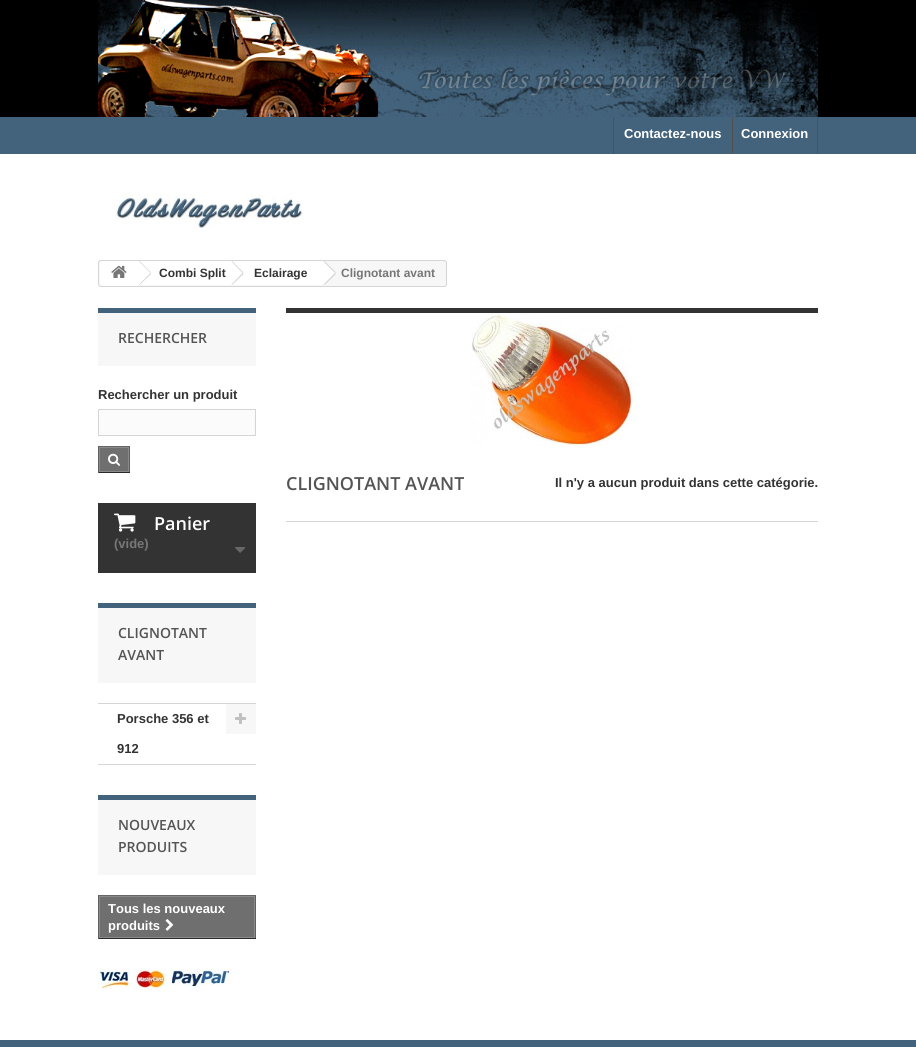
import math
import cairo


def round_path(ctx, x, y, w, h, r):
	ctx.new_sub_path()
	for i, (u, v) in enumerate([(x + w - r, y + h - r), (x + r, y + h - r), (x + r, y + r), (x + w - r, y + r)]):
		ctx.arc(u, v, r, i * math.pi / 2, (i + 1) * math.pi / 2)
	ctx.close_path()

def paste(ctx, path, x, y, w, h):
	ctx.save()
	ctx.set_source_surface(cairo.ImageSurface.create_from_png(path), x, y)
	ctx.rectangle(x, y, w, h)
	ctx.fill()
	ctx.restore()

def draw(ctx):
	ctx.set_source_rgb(1, 1, 1)
	ctx.paint()
	ctx.set_source_rgb(0, 0, 0)
	ctx.rectangle(0, 0, 916, 117)
	ctx.fill()
	paste(ctx, 'media/1.png', 98, 0, 720, 117)
	ctx.set_source_rgb(0.263, 0.388, 0.486)
	ctx.rectangle(0, 117, 916, 37)
	ctx.fill()
	ctx.set_source_rgb(0.318, 0.318, 0.318)
	ctx.rectangle(613, 117, 1, 37)
	ctx.fill()
	ctx.select_font_face('Liberation Sans', cairo.FONT_SLANT_NORMAL, cairo.FONT_WEIGHT_BOLD)
	ctx.set_font_size(13)
	ctx.set_source_rgb(1, 1, 1)
	ctx.move_to(624, 138)
	ctx.show_text('Contactez-nous')
	ctx.set_source_rgb(0.318, 0.318, 0.318)
	ctx.rectangle(817, 117, 1, 37)
	ctx.fill()
	ctx.rectangle(732, 117, 1, 37)
	ctx.fill()
	ctx.set_source_rgb(1, 1, 1)
	ctx.move_to(741, 138)
	ctx.show_text('Connexion')
	paste(ctx, 'media/2.png', 114, 194, 189, 36)
	ctx.set_source_rgb(0.965, 0.965, 0.965)
	round_path(ctx, 98.5, 260.5, 348, 26, 2.5)
	ctx.fill_preserve()
	ctx.set_source_rgb(0.839, 0.831, 0.831)
	ctx.set_line_width(1)
	ctx.stroke()
	ctx.set_source_rgb(1, 1, 1)
	ctx.new_path()
	ctx.move_to(103, 261)
	ctx.line_to(138, 261)
	ctx.line_to(138, 286)
	ctx.line_to(103, 286)
	ctx.curve_to(101.5, 286, 100, 284.5, 100, 283)
	ctx.line_to(100, 264)
	ctx.curve_to(100, 262.5, 101.5, 261, 103, 261)
	ctx.close_path()
	ctx.fill()
	paste(ctx, 'media/3.png', 111, 265, 16, 13)
	ctx.rectangle(138, 261, 94, 24)
	ctx.fill()
	ctx.set_source_rgb(0.839, 0.831, 0.831)
	ctx.new_path()
	ctx.move_to(139.5, 261)
	ctx.line_to(151, 272.5)
	ctx.line_to(150.5, 273)
	ctx.line_to(139, 261.5)
	ctx.close_path()
	ctx.move_to(150.5, 273)
	ctx.line_to(151, 274)
	ctx.line_to(139.5, 285)
	ctx.line_to(139, 284.5)
	ctx.close_path()
	ctx.fill()
	ctx.set_font_size(12)
	ctx.set_source_rgb(0.2, 0.2, 0.2)
	ctx.move_to(159, 277)
	ctx.show_text('Combi Split')
	ctx.set_source_rgb(1, 1, 1)
	ctx.new_path()
	ctx.move_to(243, 261.5)
	ctx.line_to(252.5, 271.5)
	ctx.curve_to(253.5, 272.5, 253.5, 273.5, 252.5, 274.5)
	ctx.line_to(243, 284.5)
	ctx.curve_to(242, 285, 240.5, 285, 240, 284.5)
	ctx.line_to(230, 274.5)
	ctx.curve_to(229.5, 273.5, 229.5, 272.5, 230, 271.5)
	ctx.line_to(240, 261.5)
	ctx.curve_to(240.5, 261, 242, 261, 243, 261.5)
	ctx.close_path()
	ctx.fill()
	ctx.rectangle(232, 261, 91, 24)
	ctx.fill()
	ctx.set_source_rgb(0.839, 0.831, 0.831)
	ctx.new_path()
	ctx.move_to(232, 261)
	ctx.line_to(243.5, 272.5)
	ctx.line_to(242.5, 273)
	ctx.line_to(231.5, 261.5)
	ctx.close_path()
	ctx.move_to(242.5, 273)
	ctx.line_to(243.5, 274)
	ctx.line_to(232, 285)
	ctx.line_to(231.5, 284.5)
	ctx.close_path()
	ctx.fill()
	ctx.set_source_rgb(0.2, 0.2, 0.2)
	ctx.move_to(254, 277)
	ctx.show_text('Eclairage')
	ctx.set_source_rgb(1, 1, 1)
	ctx.new_path()
	ctx.move_to(325, 261.5)
	ctx.line_to(335, 271.5)
	ctx.curve_to(336, 272.5, 336, 273.5, 335, 274.5)
	ctx.line_to(325, 284.5)
	ctx.curve_to(324.5, 285, 323, 285, 322.5, 284.5)
	ctx.line_to(312.5, 274.5)
	ctx.curve_to(311.5, 273.5, 311.5, 272.5, 312.5, 271.5)
	ctx.line_to(322.5, 261.5)
	ctx.curve_to(323, 261, 324.5, 261, 325, 261.5)
	ctx.close_path()
	ctx.fill()
	ctx.set_source_rgb(0.839, 0.831, 0.831)
	ctx.new_path()
	ctx.move_to(324.5, 261)
	ctx.line_to(336, 272.5)
	ctx.line_to(335, 273)
	ctx.line_to(323.5, 261.5)
	ctx.close_path()
	ctx.move_to(335, 273)
	ctx.line_to(336, 274)
	ctx.line_to(324.5, 285)
	ctx.line_to(323.5, 284.5)
	ctx.close_path()
	ctx.fill()
	ctx.set_source_rgb(0.467, 0.467, 0.467)
	ctx.move_to(341, 277)
	ctx.show_text('Clignotant avant')
	ctx.set_source_rgb(0.965, 0.965, 0.965)
	ctx.rectangle(98, 313, 158, 53)
	ctx.fill()
	ctx.set_source_rgb(0.263, 0.388, 0.486)
	ctx.rectangle(98, 308, 158, 5)
	ctx.fill()
	ctx.select_font_face('Open Sans SemiBold')
	ctx.set_font_size(14)
	ctx.set_source_rgb(0.333, 0.329, 0.329)
	ctx.move_to(118, 343)
	ctx.show_text('RECHERCHER')
	ctx.select_font_face('Liberation Sans', cairo.FONT_SLANT_NORMAL, cairo.FONT_WEIGHT_BOLD)
	ctx.set_font_size(13)
	ctx.set_source_rgb(0.2, 0.2, 0.2)
	ctx.move_to(98, 399)
	ctx.show_text('Rechercher un produit')
	ctx.set_source_rgb(0.984, 0.984, 0.984)
	ctx.rectangle(98.5, 409.5, 157, 26)
	ctx.fill_preserve()
	ctx.set_source_rgb(0.839, 0.831, 0.831)
	ctx.stroke()
	ctx.set_source_rgb(0.4, 0.4, 0.4)
	ctx.rectangle(98, 446, 32, 1)
	ctx.fill()
	ctx.set_source_rgb(0.373, 0.373, 0.373)
	ctx.rectangle(129, 446, 1, 27)
	ctx.fill()
	ctx.set_source_rgb(0.161, 0.161, 0.161)
	ctx.rectangle(98, 472, 32, 1)
	ctx.fill()
	ctx.set_source_rgb(0.373, 0.373, 0.373)
	ctx.rectangle(98, 446, 1, 27)
	ctx.fill()
	ctx.set_source_rgb(0.435, 0.435, 0.435)
	ctx.rectangle(99.5, 447.5, 29, 24)
	ctx.fill_preserve()
	ctx.set_source_rgb(0.545, 0.541, 0.541)
	ctx.stroke()
	paste(ctx, 'media/4.png', 108, 453, 12, 13)
	ctx.set_source_rgb(0.2, 0.2, 0.2)
	ctx.rectangle(98, 503, 158, 70)
	ctx.fill()
	paste(ctx, 'media/5.png', 114, 513, 22, 19)
	ctx.select_font_face('Open Sans SemiBold')
	ctx.set_font_size(18)
	ctx.set_source_rgb(1, 1, 1)
	ctx.move_to(154, 530)
	ctx.show_text('Panier')
	ctx.select_font_face('Liberation Sans', cairo.FONT_SLANT_NORMAL, cairo.FONT_WEIGHT_BOLD)
	ctx.set_font_size(13)
	ctx.set_source_rgb(0.467, 0.467, 0.467)
	ctx.move_to(114, 548)
	ctx.show_text('(vide)')
	paste(ctx, 'media/6.png', 235, 547, 11, 6)
	ctx.set_source_rgb(0.965, 0.965, 0.965)
	ctx.rectangle(98, 608, 158, 75)
	ctx.fill()
	ctx.set_source_rgb(0.263, 0.388, 0.486)
	ctx.rectangle(98, 603, 158, 5)
	ctx.fill()
	ctx.select_font_face('Open Sans SemiBold')
	ctx.set_font_size(14)
	ctx.set_source_rgb(0.333, 0.329, 0.329)
	ctx.move_to(118, 638)
	ctx.show_text('CLIGNOTANT')
	ctx.move_to(118, 660)
	ctx.show_text('AVANT')
	ctx.set_source_rgb(0.839, 0.831, 0.831)
	ctx.rectangle(98, 703, 158, 1)
	ctx.fill()
	ctx.rectangle(98, 764, 158, 1)
	ctx.fill()
	ctx.select_font_face('Liberation Sans', cairo.FONT_SLANT_NORMAL, cairo.FONT_WEIGHT_BOLD)
	ctx.set_font_size(13)
	ctx.set_source_rgb(0.2, 0.2, 0.2)
	ctx.move_to(117, 723)
	ctx.show_text('Porsche 356 et')
	ctx.move_to(117, 753)
	ctx.show_text('912')
	ctx.set_source_rgb(0.965, 0.965, 0.965)
	ctx.rectangle(226, 704, 30, 30)
	ctx.fill()
	paste(ctx, 'media/7.png', 235, 713, 11, 11)
	ctx.rectangle(98, 800, 158, 75)
	ctx.fill()
	ctx.set_source_rgb(0.263, 0.388, 0.486)
	ctx.rectangle(98, 795, 158, 5)
	ctx.fill()
	ctx.select_font_face('Open Sans SemiBold')
	ctx.set_font_size(14)
	ctx.set_source_rgb(0.333, 0.329, 0.329)
	ctx.move_to(118, 830)
	ctx.show_text('NOUVEAUX')
	ctx.move_to(118, 852)
	ctx.show_text('PRODUITS')
	ctx.set_source_rgb(0.4, 0.4, 0.4)
	ctx.rectangle(98, 895, 158, 1)
	ctx.fill()
	ctx.set_source_rgb(0.373, 0.373, 0.373)
	ctx.rectangle(255, 895, 1, 44)
	ctx.fill()
	ctx.set_source_rgb(0.161, 0.161, 0.161)
	ctx.rectangle(98, 938, 158, 1)
	ctx.fill()
	ctx.set_source_rgb(0.373, 0.373, 0.373)
	ctx.rectangle(98, 895, 1, 44)
	ctx.fill()
	ctx.set_source_rgb(0.435, 0.435, 0.435)
	ctx.rectangle(99.5, 896.5, 155, 41)
	ctx.fill_preserve()
	ctx.set_source_rgb(0.545, 0.541, 0.541)
	ctx.stroke()
	ctx.select_font_face('Liberation Sans', cairo.FONT_SLANT_NORMAL, cairo.FONT_WEIGHT_BOLD)
	ctx.set_font_size(13)
	ctx.set_source_rgb(1, 1, 1)
	ctx.move_to(108, 913)
	ctx.show_text('Tous les nouveaux')
	ctx.move_to(108, 930)
	ctx.show_text('produits')
	paste(ctx, 'media/8.png', 165, 919, 9, 12)
	paste(ctx, 'media/9.png', 98, 969, 32, 21)
	paste(ctx, 'media/10.png', 135, 969, 32, 21)
	paste(ctx, 'media/11.png', 170, 969, 61, 21)
	ctx.set_source_rgb(0.2, 0.2, 0.2)
	ctx.rectangle(286, 308, 532, 5)
	ctx.fill()
	paste(ctx, 'media/12.png', 286, 313, 532, 133)
	ctx.set_source_rgb(0.839, 0.831, 0.831)
	ctx.rectangle(286, 521, 532, 1)
	ctx.fill()
	ctx.select_font_face('Open Sans SemiBold')
	ctx.set_font_size(18)
	ctx.set_source_rgb(0.333, 0.329, 0.329)
	ctx.move_to(286, 490)
	ctx.show_text('CLIGNOTANT AVANT')
	ctx.select_font_face('Liberation Sans', cairo.FONT_SLANT_NORMAL, cairo.FONT_WEIGHT_BOLD)
	ctx.set_font_size(13)
	ctx.set_source_rgb(0.2, 0.2, 0.2)
	ctx.move_to(555, 487)
	ctx.show_text('Il n\'y a aucun produit dans cette catégorie.')
	ctx.set_source_rgb(0.263, 0.388, 0.486)
	ctx.rectangle(0, 1040, 916, 7)
	ctx.fill()


surface = cairo.ImageSurface(cairo.FORMAT_RGB24, 916, 1047)
ctx = cairo.Context(surface)
options = cairo.FontOptions()
options.set_hint_metrics(cairo.HINT_METRICS_OFF)
options.set_hint_style(cairo.HINT_STYLE_NONE)
ctx.set_font_options(options)
ctx.set_miter_limit(4)
draw(ctx)
surface.write_to_png('image.png')
